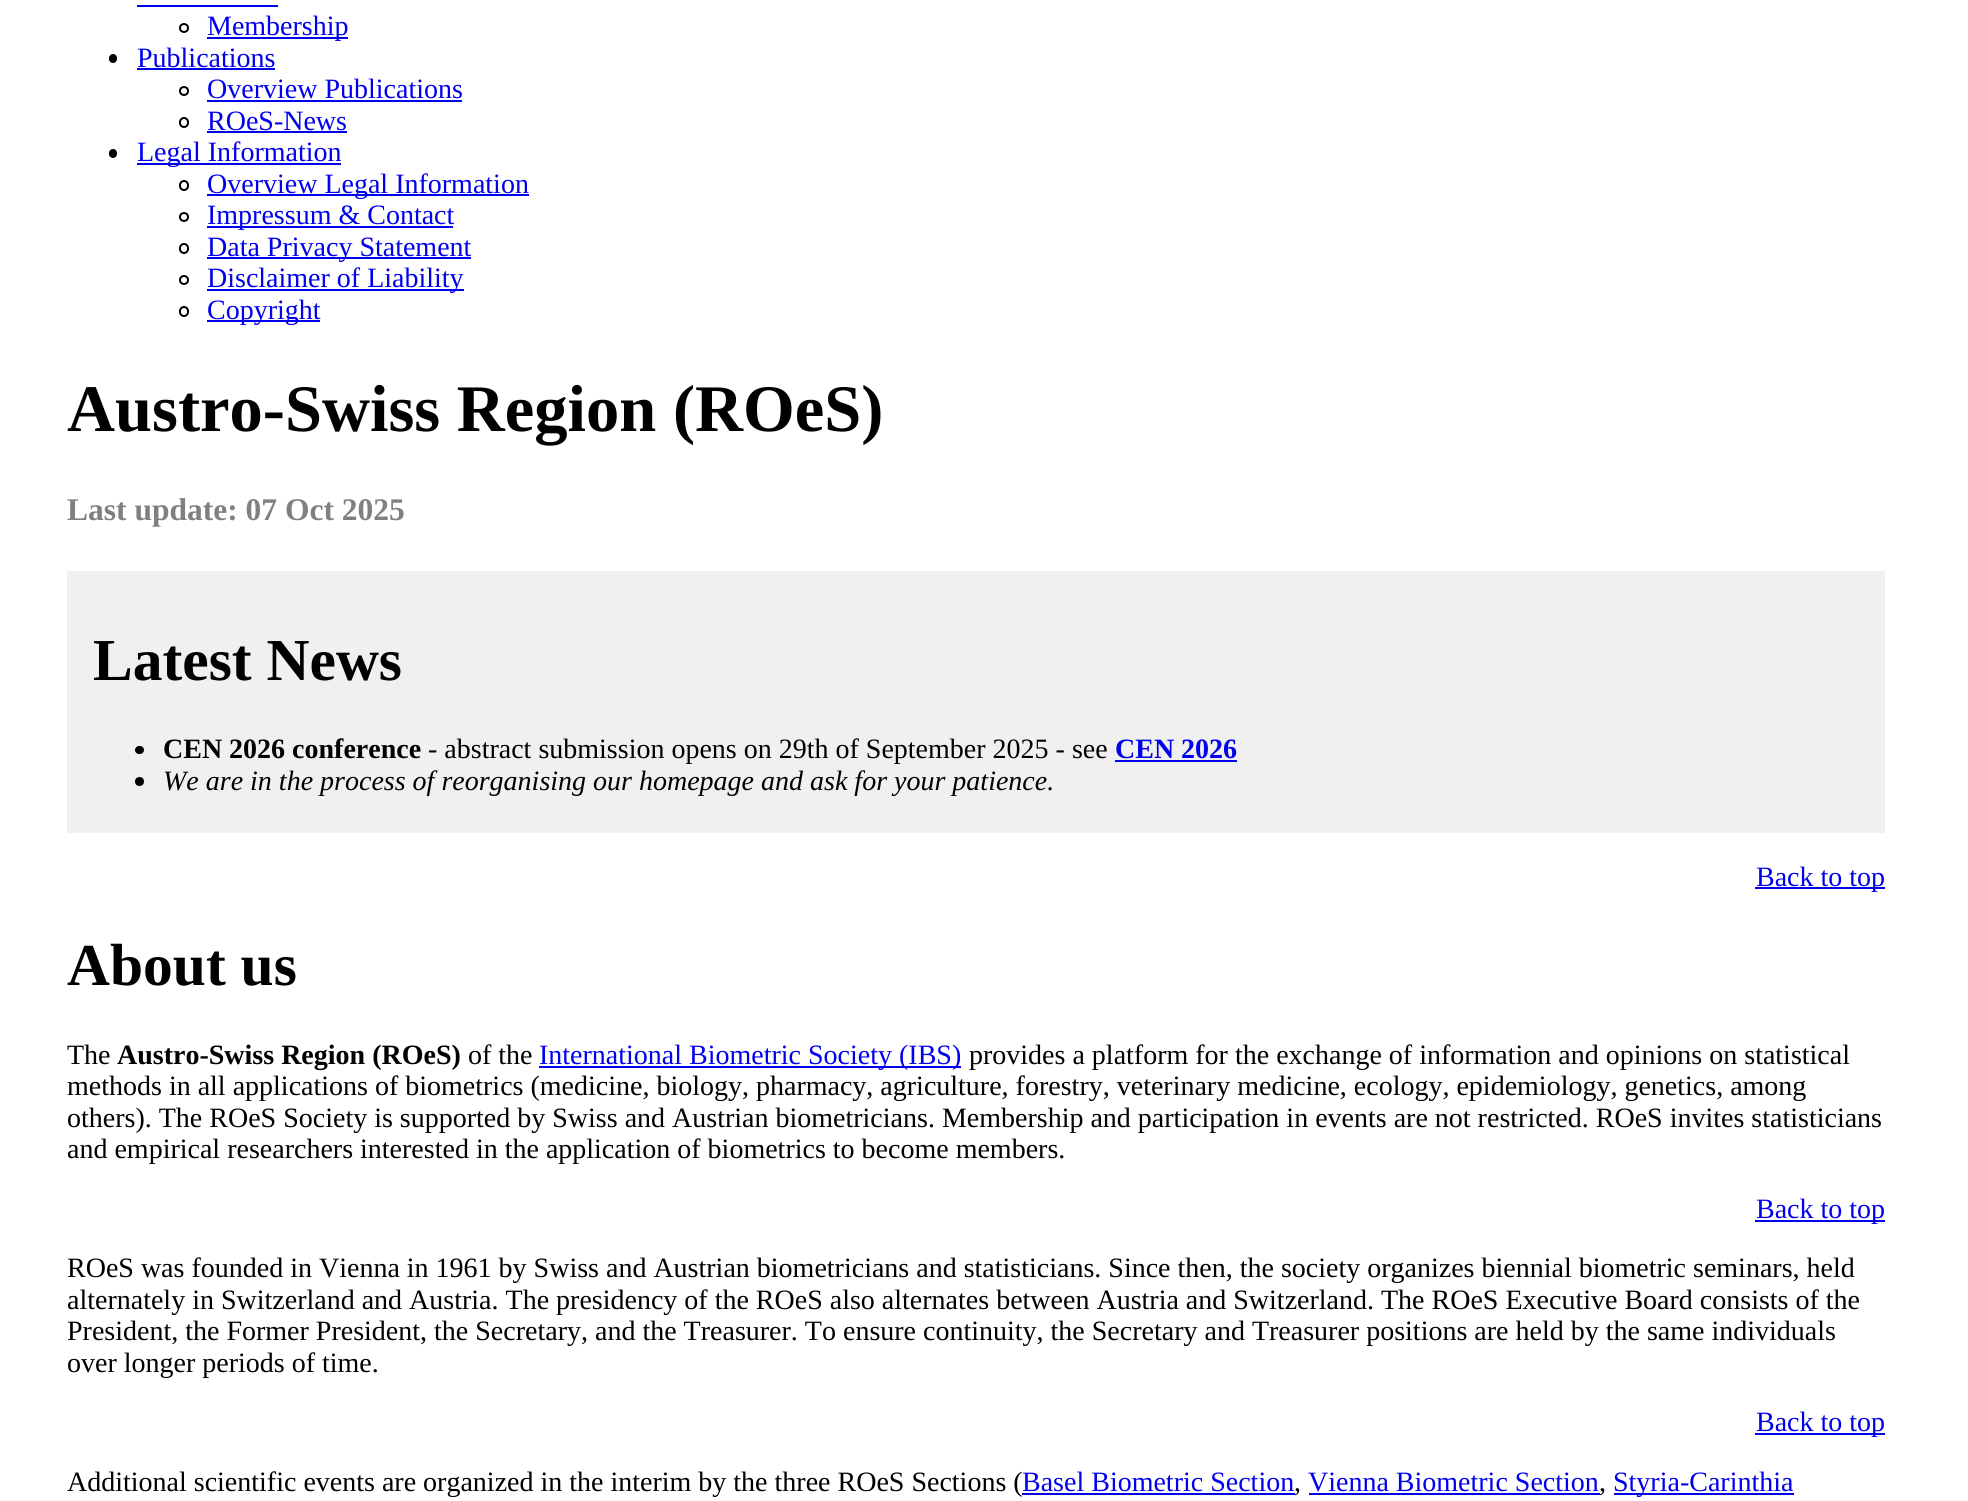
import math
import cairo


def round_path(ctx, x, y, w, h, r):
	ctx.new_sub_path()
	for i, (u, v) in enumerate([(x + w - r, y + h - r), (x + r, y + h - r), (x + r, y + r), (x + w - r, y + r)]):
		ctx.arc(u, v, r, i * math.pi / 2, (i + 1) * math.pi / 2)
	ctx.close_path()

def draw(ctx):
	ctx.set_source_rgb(1, 1, 1)
	ctx.paint()
	ctx.set_source_rgb(0, 0, 0.933)
	ctx.rectangle(137, 5, 141, 2)
	ctx.fill()
	ctx.arc(184, 28, 4, 0, 2 * math.pi)
	ctx.set_source_rgb(0, 0, 0)
	ctx.stroke()
	ctx.set_source_rgb(0, 0, 0.933)
	ctx.rectangle(207, 37, 141, 2)
	ctx.fill()
	ctx.select_font_face('Liberation Serif')
	ctx.set_font_size(28)
	ctx.move_to(207, 35)
	ctx.show_text('Membership')
	ctx.set_source_rgb(0, 0, 0)
	round_path(ctx, 109, 54, 8, 9, 4)
	ctx.fill()
	ctx.set_source_rgb(0, 0, 0.933)
	ctx.move_to(137, 67)
	ctx.show_text('Publications')
	ctx.rectangle(137, 68, 138, 2)
	ctx.fill()
	ctx.arc(184, 91, 4, 0, 2 * math.pi)
	ctx.set_source_rgb(0, 0, 0)
	ctx.stroke()
	ctx.set_source_rgb(0, 0, 0.933)
	ctx.move_to(207, 98)
	ctx.show_text('Overview Publications')
	ctx.rectangle(207, 100, 255, 2)
	ctx.fill()
	round_path(ctx, 180, 118, 8, 9, 4)
	ctx.set_source_rgb(0, 0, 0)
	ctx.stroke()
	ctx.set_source_rgb(0, 0, 0.933)
	ctx.move_to(207, 130)
	ctx.show_text('ROeS-News')
	ctx.rectangle(207, 131, 140, 2)
	ctx.fill()
	ctx.set_source_rgb(0, 0, 0)
	round_path(ctx, 109, 149, 8, 9, 4)
	ctx.fill()
	ctx.set_source_rgb(0, 0, 0.933)
	ctx.rectangle(137, 163, 204, 2)
	ctx.fill()
	ctx.move_to(137, 161)
	ctx.show_text('Legal Information')
	round_path(ctx, 180, 181, 8, 9, 4)
	ctx.set_source_rgb(0, 0, 0)
	ctx.stroke()
	ctx.set_source_rgb(0, 0, 0.933)
	ctx.rectangle(207, 194, 322, 2)
	ctx.fill()
	ctx.move_to(207, 193)
	ctx.show_text('Overview Legal Information')
	ctx.new_path()
	ctx.arc(184, 217, 4, 0, 2 * math.pi)
	ctx.set_source_rgb(0, 0, 0)
	ctx.stroke()
	ctx.set_source_rgb(0, 0, 0.933)
	ctx.rectangle(207, 226, 246, 2)
	ctx.fill()
	ctx.move_to(207, 224)
	ctx.show_text('Impressum & Contact')
	round_path(ctx, 180, 244, 8, 9, 4)
	ctx.set_source_rgb(0, 0, 0)
	ctx.stroke()
	ctx.set_source_rgb(0, 0, 0.933)
	ctx.rectangle(207, 257, 264, 2)
	ctx.fill()
	ctx.move_to(207, 256)
	ctx.show_text('Data Privacy Statement')
	ctx.new_path()
	ctx.arc(184, 280, 4, 0, 2 * math.pi)
	ctx.set_source_rgb(0, 0, 0)
	ctx.stroke()
	ctx.set_source_rgb(0, 0, 0.933)
	ctx.rectangle(207, 289, 257, 2)
	ctx.fill()
	ctx.move_to(207, 287)
	ctx.show_text('Disclaimer of Liability')
	round_path(ctx, 180, 307, 8, 9, 4)
	ctx.set_source_rgb(0, 0, 0)
	ctx.stroke()
	ctx.set_source_rgb(0, 0, 0.933)
	ctx.rectangle(207, 320, 113, 2)
	ctx.fill()
	ctx.move_to(207, 319)
	ctx.show_text('Copyright')
	ctx.select_font_face('Liberation Serif', cairo.FONT_SLANT_NORMAL, cairo.FONT_WEIGHT_BOLD)
	ctx.set_font_size(66.5)
	ctx.set_source_rgb(0, 0, 0)
	ctx.move_to(67, 431)
	ctx.show_text('Austro-Swiss Region (ROeS)')
	ctx.set_font_size(31.5)
	ctx.set_source_rgb(0.502, 0.502, 0.502)
	ctx.move_to(67, 520)
	ctx.show_text('Last update: 07 Oct 2025')
	ctx.set_source_rgb(0.941, 0.941, 0.941)
	ctx.rectangle(67, 571, 1818, 262)
	ctx.fill()
	ctx.set_font_size(59.5)
	ctx.set_source_rgb(0, 0, 0)
	ctx.move_to(93, 680)
	ctx.show_text('Latest News')
	round_path(ctx, 135, 746, 9, 8, 4)
	ctx.fill()
	ctx.set_font_size(28)
	ctx.move_to(163, 758)
	ctx.show_text('CEN 2026 conference')
	ctx.select_font_face('Liberation Serif')
	ctx.move_to(428, 758)
	ctx.show_text('- abstract submission opens on 29th of September 2025 - see')
	ctx.select_font_face('Liberation Serif', cairo.FONT_SLANT_NORMAL, cairo.FONT_WEIGHT_BOLD)
	ctx.set_source_rgb(0, 0, 0.933)
	ctx.move_to(1115, 758)
	ctx.show_text('CEN 2026')
	ctx.rectangle(1115, 760, 122, 2)
	ctx.fill()
	ctx.set_source_rgb(0, 0, 0)
	ctx.arc(139.5, 781.5, 4.5, 0, 2 * math.pi)
	ctx.fill()
	ctx.select_font_face('Liberation Serif', cairo.FONT_SLANT_ITALIC)
	ctx.move_to(163, 790)
	ctx.show_text('We are in the process of reorganising our homepage and ask for your patience.')
	ctx.set_source_rgb(0, 0, 0.933)
	ctx.rectangle(1755, 887, 130, 2)
	ctx.fill()
	ctx.select_font_face('Liberation Serif')
	ctx.move_to(1756, 886)
	ctx.show_text('Back to top')
	ctx.select_font_face('Liberation Serif', cairo.FONT_SLANT_NORMAL, cairo.FONT_WEIGHT_BOLD)
	ctx.set_font_size(59.5)
	ctx.set_source_rgb(0, 0, 0)
	ctx.move_to(67, 985)
	ctx.show_text('About us')
	ctx.select_font_face('Liberation Serif')
	ctx.set_font_size(28)
	ctx.move_to(67, 1064)
	ctx.show_text('The')
	ctx.select_font_face('Liberation Serif', cairo.FONT_SLANT_NORMAL, cairo.FONT_WEIGHT_BOLD)
	ctx.move_to(117, 1064)
	ctx.show_text('Austro-Swiss Region (ROeS)')
	ctx.select_font_face('Liberation Serif')
	ctx.move_to(468, 1064)
	ctx.show_text('of the')
	ctx.set_source_rgb(0, 0, 0.933)
	ctx.rectangle(539, 1066, 422, 2)
	ctx.fill()
	ctx.move_to(539, 1064)
	ctx.show_text('International Biometric Society (IBS)')
	ctx.set_source_rgb(0, 0, 0)
	for x, y, s in [
		(969, 1064, 'provides a platform for the exchange of information and opinions on statistical'),
		(67, 1095, 'methods in all applications of biometrics (medicine, biology, pharmacy, agriculture, forestry, veterinary medicine, ecology, epidemiology, genetics, among'),
		(67, 1127, 'others). The ROeS Society is supported by Swiss and Austrian biometricians. Membership and participation in events are not restricted. ROeS invites statisticians'),
		(67, 1158, 'and empirical researchers interested in the application of biometrics to become members.'),
	]:
		ctx.move_to(x, y)
		ctx.show_text(s)
	ctx.set_source_rgb(0, 0, 0.933)
	ctx.rectangle(1755, 1220, 130, 2)
	ctx.fill()
	ctx.move_to(1756, 1218)
	ctx.show_text('Back to top')
	ctx.set_source_rgb(0, 0, 0)
	for x, y, s in [
		(67, 1277, 'ROeS was founded in Vienna in 1961 by Swiss and Austrian biometricians and statisticians. Since then, the society organizes biennial biometric seminars, held'),
		(67, 1309, 'alternately in Switzerland and Austria. The presidency of the ROeS also alternates between Austria and Switzerland. The ROeS Executive Board consists of the'),
		(67, 1340, 'President, the Former President, the Secretary, and the Treasurer. To ensure continuity, the Secretary and Treasurer positions are held by the same individuals'),
		(67, 1372, 'over longer periods of time.'),
	]:
		ctx.move_to(x, y)
		ctx.show_text(s)
	ctx.set_source_rgb(0, 0, 0.933)
	ctx.rectangle(1755, 1433, 130, 2)
	ctx.fill()
	ctx.move_to(1756, 1431)
	ctx.show_text('Back to top')
	ctx.set_source_rgb(0, 0, 0)
	ctx.move_to(67, 1491)
	ctx.show_text('Additional scientific events are organized in the interim by the three ROeS Sections (')
	ctx.set_source_rgb(0, 0, 0.933)
	ctx.move_to(1022, 1491)
	ctx.show_text('Basel Biometric Section')
	ctx.rectangle(1022, 1493, 273, 2)
	ctx.fill()
	ctx.set_source_rgb(0, 0, 0)
	ctx.move_to(1294, 1491)
	ctx.show_text(',')
	ctx.set_source_rgb(0, 0, 0.933)
	ctx.move_to(1308, 1491)
	ctx.show_text('Vienna Biometric Section')
	ctx.rectangle(1309, 1493, 291, 2)
	ctx.fill()
	ctx.set_source_rgb(0, 0, 0)
	ctx.move_to(1599, 1491)
	ctx.show_text(',')
	ctx.set_source_rgb(0, 0, 0.933)
	ctx.rectangle(1614, 1493, 180, 2)
	ctx.fill()
	ctx.move_to(1613, 1491)
	ctx.show_text('Styria-Carinthia')


surface = cairo.ImageSurface(cairo.FORMAT_RGB24, 1968, 1501)
ctx = cairo.Context(surface)
options = cairo.FontOptions()
options.set_hint_metrics(cairo.HINT_METRICS_OFF)
options.set_hint_style(cairo.HINT_STYLE_NONE)
ctx.set_font_options(options)
ctx.set_miter_limit(4)
draw(ctx)
surface.write_to_png('image.png')
